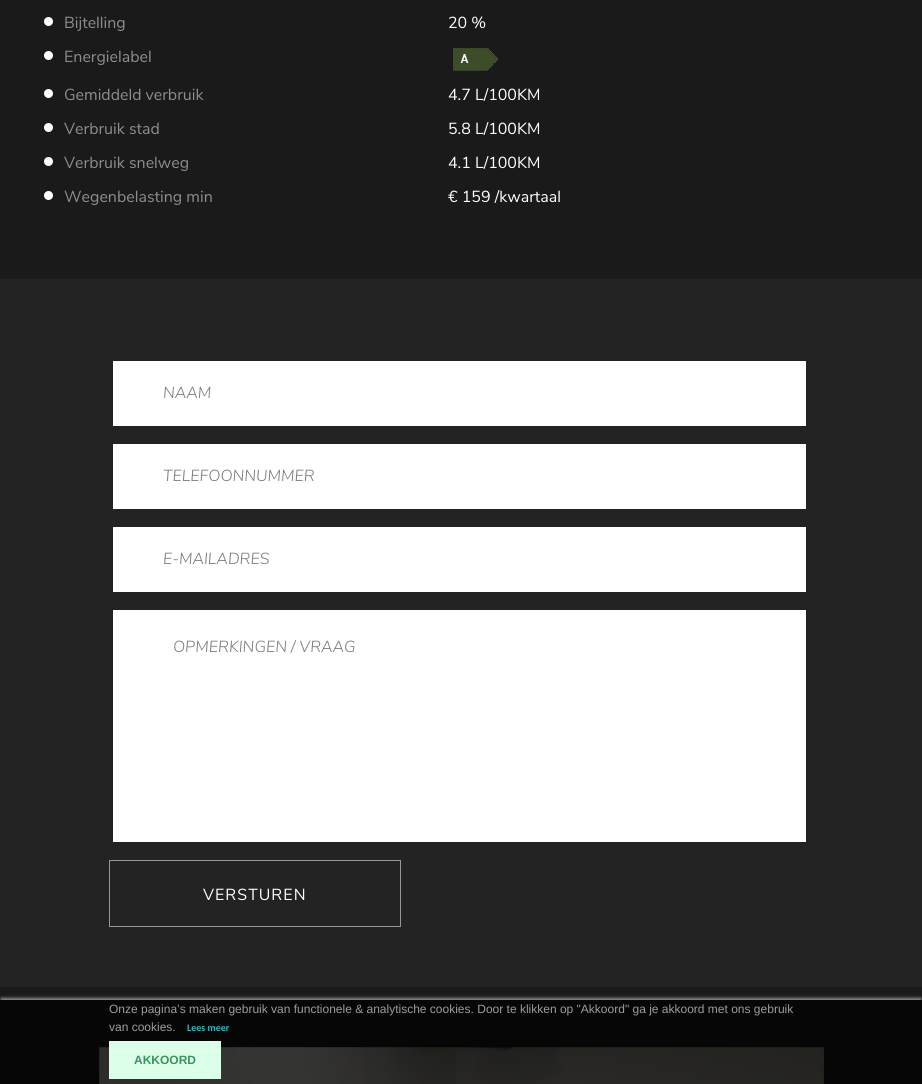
import math
import cairo


def write_spaced(ctx, x, y, s, letter, word):
	ctx.move_to(x, y)
	for ch in s:
		ctx.show_text(ch)
		ctx.rel_move_to(letter + word * (ch == ' '), 0)

def round_path(ctx, x, y, w, h, r):
	ctx.new_sub_path()
	for i, (u, v) in enumerate([(x + w - r, y + h - r), (x + r, y + h - r), (x + r, y + r), (x + w - r, y + r)]):
		ctx.arc(u, v, r, i * math.pi / 2, (i + 1) * math.pi / 2)
	ctx.close_path()

def blur_box(ctx, x, y, w, h, r, blur, alpha):
	ctx.push_group_with_content(cairo.CONTENT_ALPHA)
	ctx.set_operator(cairo.OPERATOR_SOURCE)
	for i in range(15, -16, -2):
		e = blur * i / 6
		if min(w, h) + 2 * e > 0:
			ctx.set_source_rgba(0, 0, 0, alpha * math.erfc((i - 1) / 8.5) / 2)
			round_path(ctx, x - e, y - e, w + 2 * e, h + 2 * e, max(0, min(r + e + blur * .6, min(w, h) / 2 + e)))
			ctx.fill()
	ctx.mask(ctx.pop_group())

def paste(ctx, path, x, y, w, h):
	ctx.save()
	ctx.set_source_surface(cairo.ImageSurface.create_from_png(path), x, y)
	ctx.rectangle(x, y, w, h)
	ctx.fill()
	ctx.restore()

def draw(ctx):
	ctx.set_source_rgb(0.137, 0.137, 0.137)
	ctx.paint()
	ctx.set_source_rgb(0.102, 0.102, 0.102)
	ctx.rectangle(0, 0, 922, 279)
	ctx.fill()
	paste(ctx, 'media/1.png', 44, 17, 9, 9)
	ctx.select_font_face('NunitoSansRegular')
	ctx.set_font_size(16)
	ctx.set_source_rgb(0.553, 0.553, 0.553)
	ctx.move_to(64, 28)
	ctx.show_text('Bijtelling')
	ctx.set_source_rgb(1, 1, 1)
	ctx.move_to(448, 28)
	ctx.show_text('20 %')
	paste(ctx, 'media/1.png', 44, 51, 9, 9)
	ctx.set_source_rgb(0.553, 0.553, 0.553)
	ctx.move_to(64, 62)
	ctx.show_text('Energielabel')
	paste(ctx, 'media/2.png', 453, 48, 45, 23)
	paste(ctx, 'media/1.png', 44, 89, 9, 9)
	ctx.move_to(64, 100)
	ctx.show_text('Gemiddeld verbruik')
	ctx.set_source_rgb(1, 1, 1)
	ctx.move_to(448, 100)
	ctx.show_text('4.7 L/100KM')
	paste(ctx, 'media/1.png', 44, 123, 9, 9)
	ctx.set_source_rgb(0.553, 0.553, 0.553)
	ctx.move_to(64, 134)
	ctx.show_text('Verbruik stad')
	ctx.set_source_rgb(1, 1, 1)
	ctx.move_to(448, 134)
	ctx.show_text('5.8 L/100KM')
	paste(ctx, 'media/1.png', 44, 157, 9, 9)
	ctx.set_source_rgb(0.553, 0.553, 0.553)
	ctx.move_to(64, 168)
	ctx.show_text('Verbruik snelweg')
	ctx.set_source_rgb(1, 1, 1)
	ctx.move_to(448, 168)
	ctx.show_text('4.1 L/100KM')
	paste(ctx, 'media/1.png', 44, 191, 9, 9)
	ctx.set_source_rgb(0.553, 0.553, 0.553)
	ctx.move_to(64, 202)
	ctx.show_text('Wegenbelasting min')
	ctx.set_source_rgb(1, 1, 1)
	ctx.move_to(448, 202)
	ctx.show_text('€ 159 /kwartaal')
	ctx.rectangle(113, 361, 693, 65)
	ctx.fill()
	ctx.select_font_face('Nunito Sans Light', cairo.FONT_SLANT_ITALIC)
	ctx.set_source_rgb(0.478, 0.478, 0.478)
	ctx.move_to(163, 398)
	ctx.show_text('NAAM')
	ctx.set_source_rgb(1, 1, 1)
	ctx.rectangle(113, 444, 693, 65)
	ctx.fill()
	ctx.set_source_rgb(0.478, 0.478, 0.478)
	ctx.move_to(163, 481)
	ctx.show_text('TELEFOONNUMMER')
	ctx.set_source_rgb(1, 1, 1)
	ctx.rectangle(113, 527, 693, 65)
	ctx.fill()
	ctx.set_source_rgb(0.478, 0.478, 0.478)
	ctx.move_to(163, 564)
	ctx.show_text('E-MAILADRES')
	ctx.set_source_rgb(1, 1, 1)
	ctx.rectangle(113, 610, 693, 232)
	ctx.fill()
	ctx.set_source_rgb(0.478, 0.478, 0.478)
	ctx.move_to(173, 652)
	ctx.show_text('OPMERKINGEN / VRAAG')
	ctx.rectangle(109.5, 860.5, 291, 66)
	ctx.set_source_rgb(0.592, 0.592, 0.592)
	ctx.set_line_width(1)
	ctx.stroke()
	ctx.select_font_face('NunitoSansRegular')
	ctx.set_source_rgb(1, 1, 1)
	write_spaced(ctx, 203, 900, 'VERSTUREN', 1, 0)
	ctx.set_source_rgb(0.102, 0.102, 0.102)
	ctx.rectangle(0, 987, 922, 13)
	ctx.fill()
	ctx.set_source_rgb(0.024, 0.024, 0.024)
	ctx.rectangle(0, 1000, 922, 84)
	ctx.fill()
	paste(ctx, 'media/3.png', 99, 1047, 725, 37)
	paste(ctx, 'media/4.png', 823, 1047, 1, 37)
	ctx.save()
	ctx.rectangle(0, 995, 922, 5)
	ctx.clip()
	ctx.set_source_rgb(0.796, 0.796, 0.796)
	blur_box(ctx, 1, 998, 920, 82, 0, 1.5, 0.65)
	ctx.restore()
	ctx.select_font_face('Liberation Sans')
	ctx.set_font_size(12)
	ctx.set_source_rgb(0.612, 0.612, 0.612)
	ctx.move_to(109, 1013)
	ctx.show_text('Onze pagina’s maken gebruik van functionele & analytische cookies. Door te klikken op "Akkoord" ga je akkoord met ons gebruik')
	ctx.move_to(109, 1031)
	ctx.show_text('van cookies.')
	ctx.select_font_face('Carlito', cairo.FONT_SLANT_NORMAL, cairo.FONT_WEIGHT_BOLD)
	ctx.set_font_size(10)
	ctx.set_source_rgb(0.22, 0.714, 0.745)
	ctx.move_to(187, 1031)
	ctx.show_text('Lees meer')
	ctx.set_source_rgb(0.859, 1, 0.91)
	ctx.rectangle(109, 1041, 112, 38)
	ctx.fill()
	ctx.select_font_face('Liberation Sans', cairo.FONT_SLANT_NORMAL, cairo.FONT_WEIGHT_BOLD)
	ctx.set_font_size(12)
	ctx.set_source_rgb(0.235, 0.576, 0.361)
	ctx.move_to(134, 1064)
	ctx.show_text('AKKOORD')


surface = cairo.ImageSurface(cairo.FORMAT_RGB24, 922, 1084)
ctx = cairo.Context(surface)
options = cairo.FontOptions()
options.set_hint_metrics(cairo.HINT_METRICS_OFF)
options.set_hint_style(cairo.HINT_STYLE_NONE)
ctx.set_font_options(options)
ctx.set_miter_limit(4)
draw(ctx)
surface.write_to_png('image.png')
